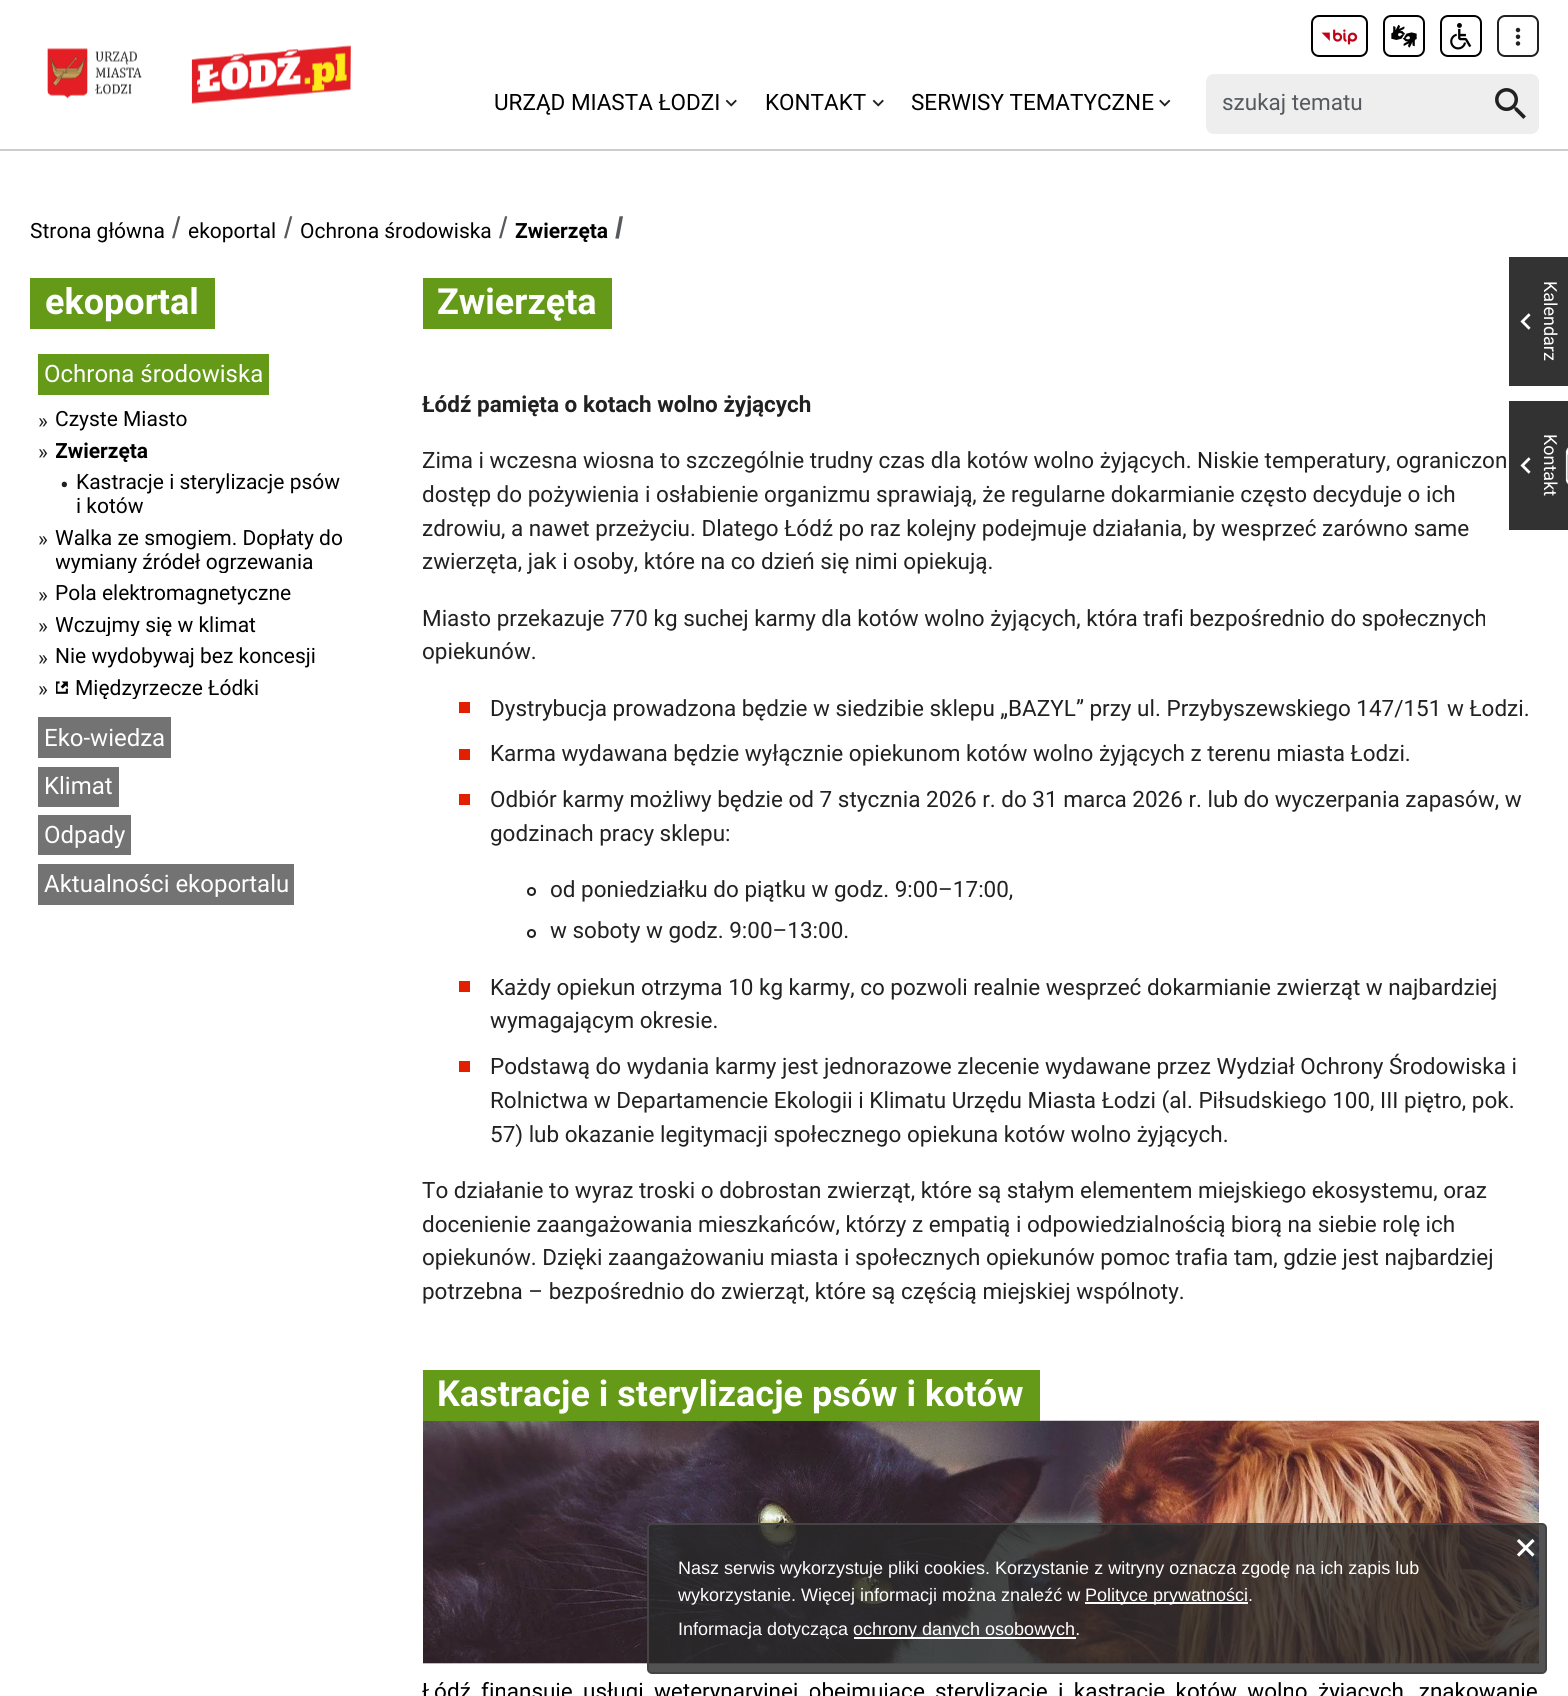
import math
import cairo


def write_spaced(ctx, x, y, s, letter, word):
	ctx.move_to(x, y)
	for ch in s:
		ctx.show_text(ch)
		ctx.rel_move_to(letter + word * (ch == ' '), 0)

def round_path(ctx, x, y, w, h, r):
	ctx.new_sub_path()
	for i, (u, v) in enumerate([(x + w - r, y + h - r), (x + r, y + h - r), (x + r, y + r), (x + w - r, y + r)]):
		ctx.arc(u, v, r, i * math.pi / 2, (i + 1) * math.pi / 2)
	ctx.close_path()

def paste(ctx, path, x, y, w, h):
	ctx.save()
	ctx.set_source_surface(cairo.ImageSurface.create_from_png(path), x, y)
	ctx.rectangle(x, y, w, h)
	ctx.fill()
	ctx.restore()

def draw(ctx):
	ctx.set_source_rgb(1, 1, 1)
	ctx.paint()
	ctx.set_source_rgb(0.8, 0.8, 0.8)
	ctx.rectangle(0, 149, 1568, 2)
	ctx.fill()
	paste(ctx, 'media/1.png', 47, 48, 95, 51)
	paste(ctx, 'media/2.png', 191, 45, 160, 59)
	round_path(ctx, 1312, 16, 55, 40, 7)
	ctx.set_source_rgb(0, 0, 0)
	ctx.stroke()
	paste(ctx, 'media/3.png', 1321, 29, 37, 16)
	round_path(ctx, 1384, 16, 40, 40, 7)
	ctx.stroke()
	paste(ctx, 'media/4.png', 1391, 24, 26, 24)
	round_path(ctx, 1441, 16, 40, 40, 7)
	ctx.stroke()
	paste(ctx, 'media/5.png', 1450, 23, 22, 27)
	round_path(ctx, 1498, 16, 40, 40, 7)
	ctx.set_source_rgb(0.129, 0.129, 0.129)
	ctx.stroke()
	paste(ctx, 'media/6.png', 1515, 27, 6, 19)
	ctx.select_font_face('Roboto')
	ctx.set_font_size(22.5)
	ctx.set_source_rgb(0, 0, 0)
	ctx.move_to(494, 110)
	ctx.show_text('URZĄD MIASTA ŁODZI')
	paste(ctx, 'media/7.png', 725, 99, 12, 8)
	ctx.move_to(765, 110)
	ctx.show_text('KONTAKT')
	paste(ctx, 'media/7.png', 872, 99, 12, 8)
	ctx.move_to(911, 110)
	ctx.show_text('SERWISY TEMATYCZNE')
	paste(ctx, 'media/8.png', 1159, 99, 12, 8)
	ctx.set_source_rgb(0.933, 0.933, 0.933)
	ctx.new_path()
	ctx.move_to(1214, 74)
	ctx.line_to(1482, 74)
	ctx.line_to(1482, 134)
	ctx.line_to(1214, 134)
	ctx.curve_to(1209.5, 134, 1206, 130.5, 1206, 126)
	ctx.line_to(1206, 82)
	ctx.curve_to(1206, 77.5, 1209.5, 74, 1214, 74)
	ctx.close_path()
	ctx.fill()
	ctx.set_source_rgb(0.337, 0.353, 0.369)
	ctx.move_to(1222, 110)
	ctx.show_text('szukaj tematu')
	ctx.set_source_rgb(0.933, 0.933, 0.933)
	ctx.new_path()
	ctx.move_to(1482, 74)
	ctx.line_to(1531, 74)
	ctx.curve_to(1535.5, 74, 1539, 77.5, 1539, 82)
	ctx.line_to(1539, 126)
	ctx.curve_to(1539, 130.5, 1535.5, 134, 1531, 134)
	ctx.line_to(1482, 134)
	ctx.close_path()
	ctx.fill()
	paste(ctx, 'media/9.png', 1495, 88, 31, 31)
	ctx.set_font_size(21)
	ctx.set_source_rgb(0, 0, 0)
	ctx.move_to(30, 238)
	ctx.show_text('Strona główna')
	ctx.select_font_face('Liberation Sans')
	ctx.set_font_size(30)
	ctx.set_source_rgb(0.337, 0.353, 0.369)
	ctx.move_to(172, 238)
	ctx.show_text('/')
	ctx.select_font_face('Roboto')
	ctx.set_font_size(21)
	ctx.set_source_rgb(0, 0, 0)
	ctx.move_to(188, 238)
	ctx.show_text('ekoportal')
	ctx.select_font_face('Liberation Sans')
	ctx.set_font_size(30)
	ctx.set_source_rgb(0.337, 0.353, 0.369)
	ctx.move_to(284, 238)
	ctx.show_text('/')
	ctx.select_font_face('Roboto')
	ctx.set_font_size(21)
	ctx.set_source_rgb(0, 0, 0)
	ctx.move_to(300, 238)
	ctx.show_text('Ochrona środowiska')
	ctx.select_font_face('Liberation Sans')
	ctx.set_font_size(30)
	ctx.set_source_rgb(0.337, 0.353, 0.369)
	ctx.move_to(499, 238)
	ctx.show_text('/')
	ctx.select_font_face('Roboto', cairo.FONT_SLANT_NORMAL, cairo.FONT_WEIGHT_BOLD)
	ctx.set_font_size(21)
	ctx.set_source_rgb(0, 0, 0)
	ctx.move_to(515, 238)
	ctx.show_text('Zwierzęta')
	ctx.select_font_face('Liberation Sans', cairo.FONT_SLANT_NORMAL, cairo.FONT_WEIGHT_BOLD)
	ctx.set_font_size(30)
	ctx.set_source_rgb(0.337, 0.353, 0.369)
	ctx.move_to(615, 238)
	ctx.show_text('/')
	ctx.set_source_rgb(0.392, 0.604, 0.094)
	ctx.rectangle(30, 278, 185, 51)
	ctx.fill()
	ctx.select_font_face('Roboto', cairo.FONT_SLANT_NORMAL, cairo.FONT_WEIGHT_BOLD)
	ctx.set_font_size(36)
	ctx.set_source_rgb(1, 1, 1)
	ctx.move_to(45, 314)
	ctx.show_text('ekoportal')
	ctx.set_source_rgb(0.392, 0.604, 0.094)
	ctx.rectangle(38, 354, 231, 41)
	ctx.fill()
	ctx.select_font_face('Roboto')
	ctx.set_font_size(24)
	ctx.set_source_rgb(1, 1, 1)
	ctx.move_to(44, 382)
	ctx.show_text('Ochrona środowiska')
	ctx.set_font_size(21)
	ctx.set_source_rgb(0.129, 0.129, 0.129)
	ctx.move_to(38, 428)
	ctx.show_text('»')
	ctx.set_source_rgb(0, 0, 0)
	ctx.move_to(55, 426)
	ctx.show_text('Czyste Miasto')
	ctx.set_source_rgb(0.129, 0.129, 0.129)
	ctx.move_to(38, 459)
	ctx.show_text('»')
	ctx.save()
	ctx.rectangle(56, 438, 300, 24)
	ctx.clip()
	ctx.select_font_face('Roboto', cairo.FONT_SLANT_NORMAL, cairo.FONT_WEIGHT_BOLD)
	ctx.set_source_rgb(0, 0, 0)
	ctx.move_to(55, 458)
	ctx.show_text('Zwierzęta')
	ctx.restore()
	ctx.set_font_size(26)
	ctx.move_to(60, 494)
	ctx.show_text('•')
	ctx.set_font_size(21)
	ctx.set_source_rgb(0, 0, 0)
	ctx.move_to(76, 489)
	ctx.show_text('Kastracje i sterylizacje psów')
	ctx.move_to(76, 513)
	ctx.show_text('i kotów')
	ctx.set_source_rgb(0.129, 0.129, 0.129)
	ctx.move_to(38, 546)
	ctx.show_text('»')
	ctx.set_source_rgb(0, 0, 0)
	ctx.move_to(55, 545)
	ctx.show_text('Walka ze smogiem. Dopłaty do')
	ctx.save()
	ctx.rectangle(56, 525, 300, 48)
	ctx.clip()
	ctx.move_to(55, 569)
	ctx.show_text('wymiany źródeł ogrzewania')
	ctx.restore()
	ctx.set_source_rgb(0.129, 0.129, 0.129)
	ctx.move_to(38, 602)
	ctx.show_text('»')
	ctx.set_source_rgb(0, 0, 0)
	ctx.move_to(55, 600)
	ctx.show_text('Pola elektromagnetyczne')
	ctx.set_source_rgb(0.129, 0.129, 0.129)
	ctx.move_to(38, 633)
	ctx.show_text('»')
	ctx.save()
	ctx.rectangle(56, 612, 300, 24)
	ctx.clip()
	ctx.set_source_rgb(0, 0, 0)
	ctx.move_to(55, 632)
	ctx.show_text('Wczujmy się w klimat')
	ctx.restore()
	ctx.move_to(38, 665)
	ctx.show_text('»')
	ctx.set_source_rgb(0, 0, 0)
	ctx.move_to(55, 663)
	ctx.show_text('Nie wydobywaj bez koncesji')
	ctx.set_source_rgb(0.129, 0.129, 0.129)
	ctx.move_to(38, 696)
	ctx.show_text('»')
	paste(ctx, 'media/10.png', 56, 681, 12, 13)
	ctx.save()
	ctx.rectangle(56, 675, 300, 24)
	ctx.clip()
	ctx.set_source_rgb(0, 0, 0)
	ctx.move_to(75, 695)
	ctx.show_text('Międzyrzecze Łódki')
	ctx.restore()
	ctx.set_source_rgb(0.451, 0.451, 0.451)
	ctx.rectangle(38, 717, 133, 41)
	ctx.fill()
	ctx.set_font_size(24)
	ctx.set_source_rgb(1, 1, 1)
	ctx.move_to(44, 746)
	ctx.show_text('Eko-wiedza')
	ctx.set_source_rgb(0.451, 0.451, 0.451)
	ctx.rectangle(38, 767, 81, 40)
	ctx.fill()
	ctx.set_source_rgb(1, 1, 1)
	ctx.move_to(44, 794)
	ctx.show_text('Klimat')
	ctx.set_source_rgb(0.451, 0.451, 0.451)
	ctx.rectangle(38, 815, 93, 40)
	ctx.fill()
	ctx.set_source_rgb(1, 1, 1)
	ctx.move_to(44, 843)
	ctx.show_text('Odpady')
	ctx.set_source_rgb(0.451, 0.451, 0.451)
	ctx.rectangle(38, 864, 256, 41)
	ctx.fill()
	ctx.set_source_rgb(1, 1, 1)
	ctx.move_to(44, 892)
	ctx.show_text('Aktualności ekoportalu')
	ctx.set_source_rgb(0.392, 0.604, 0.094)
	ctx.rectangle(423, 278, 189, 51)
	ctx.fill()
	ctx.select_font_face('Roboto', cairo.FONT_SLANT_NORMAL, cairo.FONT_WEIGHT_BOLD)
	ctx.set_font_size(36)
	ctx.set_source_rgb(1, 1, 1)
	ctx.move_to(437, 314)
	ctx.show_text('Zwierzęta')
	ctx.set_font_size(22.5)
	ctx.set_source_rgb(0.129, 0.129, 0.129)
	ctx.move_to(422, 412)
	ctx.show_text('Łódź pamięta o kotach wolno żyjących')
	ctx.select_font_face('Roboto')
	for x, y, s in [
		(422, 468, 'Zima i wczesna wiosna to szczególnie trudny czas dla kotów wolno żyjących. Niskie temperatury, ograniczon'),
		(422, 502, 'dostęp do pożywienia i osłabienie organizmu sprawiają, że regularne dokarmianie często decyduje o ich'),
		(422, 536, 'zdrowiu, a nawet przeżyciu. Dlatego Łódź po raz kolejny podejmuje działania, by wesprzeć zarówno same'),
		(422, 569, 'zwierzęta, jak i osoby, które na co dzień się nimi opiekują.'),
		(422, 626, 'Miasto przekazuje 770 kg suchej karmy dla kotów wolno żyjących, która trafi bezpośrednio do społecznych'),
		(422, 659, 'opiekunów.'),
	]:
		ctx.move_to(x, y)
		ctx.show_text(s)
	ctx.set_source_rgb(0.886, 0.125, 0)
	ctx.rectangle(459, 702, 11, 11)
	ctx.fill()
	ctx.set_source_rgb(0.129, 0.129, 0.129)
	ctx.move_to(490, 716)
	ctx.show_text('Dystrybucja prowadzona będzie w siedzibie sklepu „BAZYL” przy ul. Przybyszewskiego 147/151 w Łodzi.')
	ctx.set_source_rgb(0.886, 0.125, 0)
	ctx.rectangle(459, 749, 11, 11)
	ctx.fill()
	ctx.set_source_rgb(0.129, 0.129, 0.129)
	ctx.move_to(490, 761)
	ctx.show_text('Karma wydawana będzie wyłącznie opiekunom kotów wolno żyjących z terenu miasta Łodzi.')
	ctx.set_source_rgb(0.886, 0.125, 0)
	ctx.rectangle(459, 794, 11, 11)
	ctx.fill()
	ctx.set_source_rgb(0.129, 0.129, 0.129)
	ctx.move_to(490, 807)
	ctx.show_text('Odbiór karmy możliwy będzie od 7 stycznia 2026 r. do 31 marca 2026 r. lub do wyczerpania zapasów, w')
	ctx.move_to(490, 841)
	ctx.show_text('godzinach pracy sklepu:')
	ctx.new_path()
	ctx.arc(531.5, 891.5, 3.5, 0, 2 * math.pi)
	ctx.stroke()
	ctx.move_to(550, 897)
	ctx.show_text('od poniedziałku do piątku w godz. 9:00–17:00,')
	ctx.new_path()
	ctx.arc(531.5, 933.5, 3.5, 0, 2 * math.pi)
	ctx.stroke()
	ctx.move_to(550, 938)
	ctx.show_text('w soboty w godz. 9:00–13:00.')
	ctx.set_source_rgb(0.886, 0.125, 0)
	ctx.rectangle(459, 981, 11, 11)
	ctx.fill()
	ctx.set_source_rgb(0.129, 0.129, 0.129)
	ctx.move_to(490, 995)
	ctx.show_text('Każdy opiekun otrzyma 10 kg karmy, co pozwoli realnie wesprzeć dokarmianie zwierząt w najbardziej')
	ctx.move_to(490, 1028)
	ctx.show_text('wymagającym okresie.')
	ctx.set_source_rgb(0.886, 0.125, 0)
	ctx.rectangle(459, 1061, 11, 11)
	ctx.fill()
	ctx.set_source_rgb(0.129, 0.129, 0.129)
	for x, y, s in [
		(490, 1074, 'Podstawą do wydania karmy jest jednorazowe zlecenie wydawane przez Wydział Ochrony Środowiska i'),
		(490, 1108, 'Rolnictwa w Departamencie Ekologii i Klimatu Urzędu Miasta Łodzi (al. Piłsudskiego 100, III piętro, pok.'),
		(490, 1142, '57) lub okazanie legitymacji społecznego opiekuna kotów wolno żyjących.'),
		(422, 1198, 'To działanie to wyraz troski o dobrostan zwierząt, które są stałym elementem miejskiego ekosystemu, oraz'),
		(422, 1232, 'docenienie zaangażowania mieszkańców, którzy z empatią i odpowiedzialnością biorą na siebie rolę ich'),
		(422, 1265, 'opiekunów. Dzięki zaangażowaniu miasta i społecznych opiekunów pomoc trafia tam, gdzie jest najbardziej'),
		(422, 1299, 'potrzebna – bezpośrednio do zwierząt, które są częścią miejskiej wspólnoty.'),
	]:
		ctx.move_to(x, y)
		ctx.show_text(s)
	ctx.set_source_rgb(0.929, 0.929, 0.929)
	ctx.rectangle(423, 1663, 1116, 1)
	ctx.fill()
	paste(ctx, 'media/11.png', 423, 1420, 1116, 244)
	ctx.set_source_rgb(0.392, 0.604, 0.094)
	ctx.rectangle(423, 1370, 617, 51)
	ctx.fill()
	ctx.select_font_face('Roboto', cairo.FONT_SLANT_NORMAL, cairo.FONT_WEIGHT_BOLD)
	ctx.set_font_size(36)
	ctx.set_source_rgb(1, 1, 1)
	ctx.move_to(437, 1406)
	ctx.show_text('Kastracje i sterylizacje psów i kotów')
	ctx.select_font_face('Roboto')
	ctx.set_font_size(22.5)
	ctx.set_source_rgb(0, 0, 0)
	write_spaced(ctx, 422, 1699, 'Łódź finansuje usługi weterynaryjnej obejmujące sterylizacje i kastracje kotów wolno żyjących, znakowanie', 0, 4.75)
	ctx.set_source_rgb(0.2, 0.2, 0.2)
	ctx.rectangle(1509, 257, 59, 129)
	ctx.fill()
	paste(ctx, 'media/12.png', 1520, 313, 11, 17)
	ctx.set_font_size(18)
	ctx.set_source_rgb(1, 1, 1)
	ctx.save()
	ctx.translate(1544, 281)
	ctx.rotate(90 * math.pi / 180)
	ctx.move_to(0, 0)
	ctx.show_text('Kalendarz')
	ctx.restore()
	ctx.set_source_rgba(0.176, 0.176, 0.176, 0.97)
	ctx.rectangle(1509, 401, 59, 129)
	ctx.fill()
	paste(ctx, 'media/13.png', 1520, 457, 11, 17)
	ctx.set_source_rgb(1, 1, 1)
	ctx.save()
	ctx.translate(1544, 434)
	ctx.rotate(90 * math.pi / 180)
	ctx.move_to(0, 0)
	ctx.show_text('Kontakt')
	ctx.restore()
	paste(ctx, 'media/14.png', 1565, 447, 3, 38)
	ctx.set_source_rgba(0.161, 0.161, 0.161, 0.8)
	round_path(ctx, 648, 1524, 898, 149, 4)
	ctx.fill_preserve()
	ctx.set_source_rgb(0.267, 0.267, 0.267)
	ctx.stroke()
	ctx.select_font_face('DejaVu Sans Mono')
	ctx.set_font_size(39)
	ctx.set_source_rgb(1, 1, 1)
	ctx.move_to(1514, 1560)
	ctx.show_text('×')
	ctx.select_font_face('Liberation Sans')
	ctx.set_font_size(18)
	ctx.move_to(678, 1574)
	ctx.show_text('Nasz serwis wykorzystuje pliki cookies. Korzystanie z witryny oznacza zgodę na ich zapis lub')
	ctx.move_to(678, 1601)
	ctx.show_text('wykorzystanie. Więcej informacji można znaleźć w')
	ctx.rectangle(1085, 1602, 163, 2)
	ctx.fill()
	ctx.move_to(1085, 1601)
	ctx.show_text('Polityce prywatności.')
	ctx.move_to(678, 1635)
	ctx.show_text('Informacja dotycząca')
	ctx.rectangle(854, 1637, 222, 2)
	ctx.fill()
	ctx.move_to(853, 1635)
	ctx.show_text('ochrony danych osobowych.')


surface = cairo.ImageSurface(cairo.FORMAT_RGB24, 1568, 1696)
ctx = cairo.Context(surface)
options = cairo.FontOptions()
options.set_hint_metrics(cairo.HINT_METRICS_OFF)
options.set_hint_style(cairo.HINT_STYLE_NONE)
ctx.set_font_options(options)
ctx.set_miter_limit(4)
draw(ctx)
surface.write_to_png('image.png')
